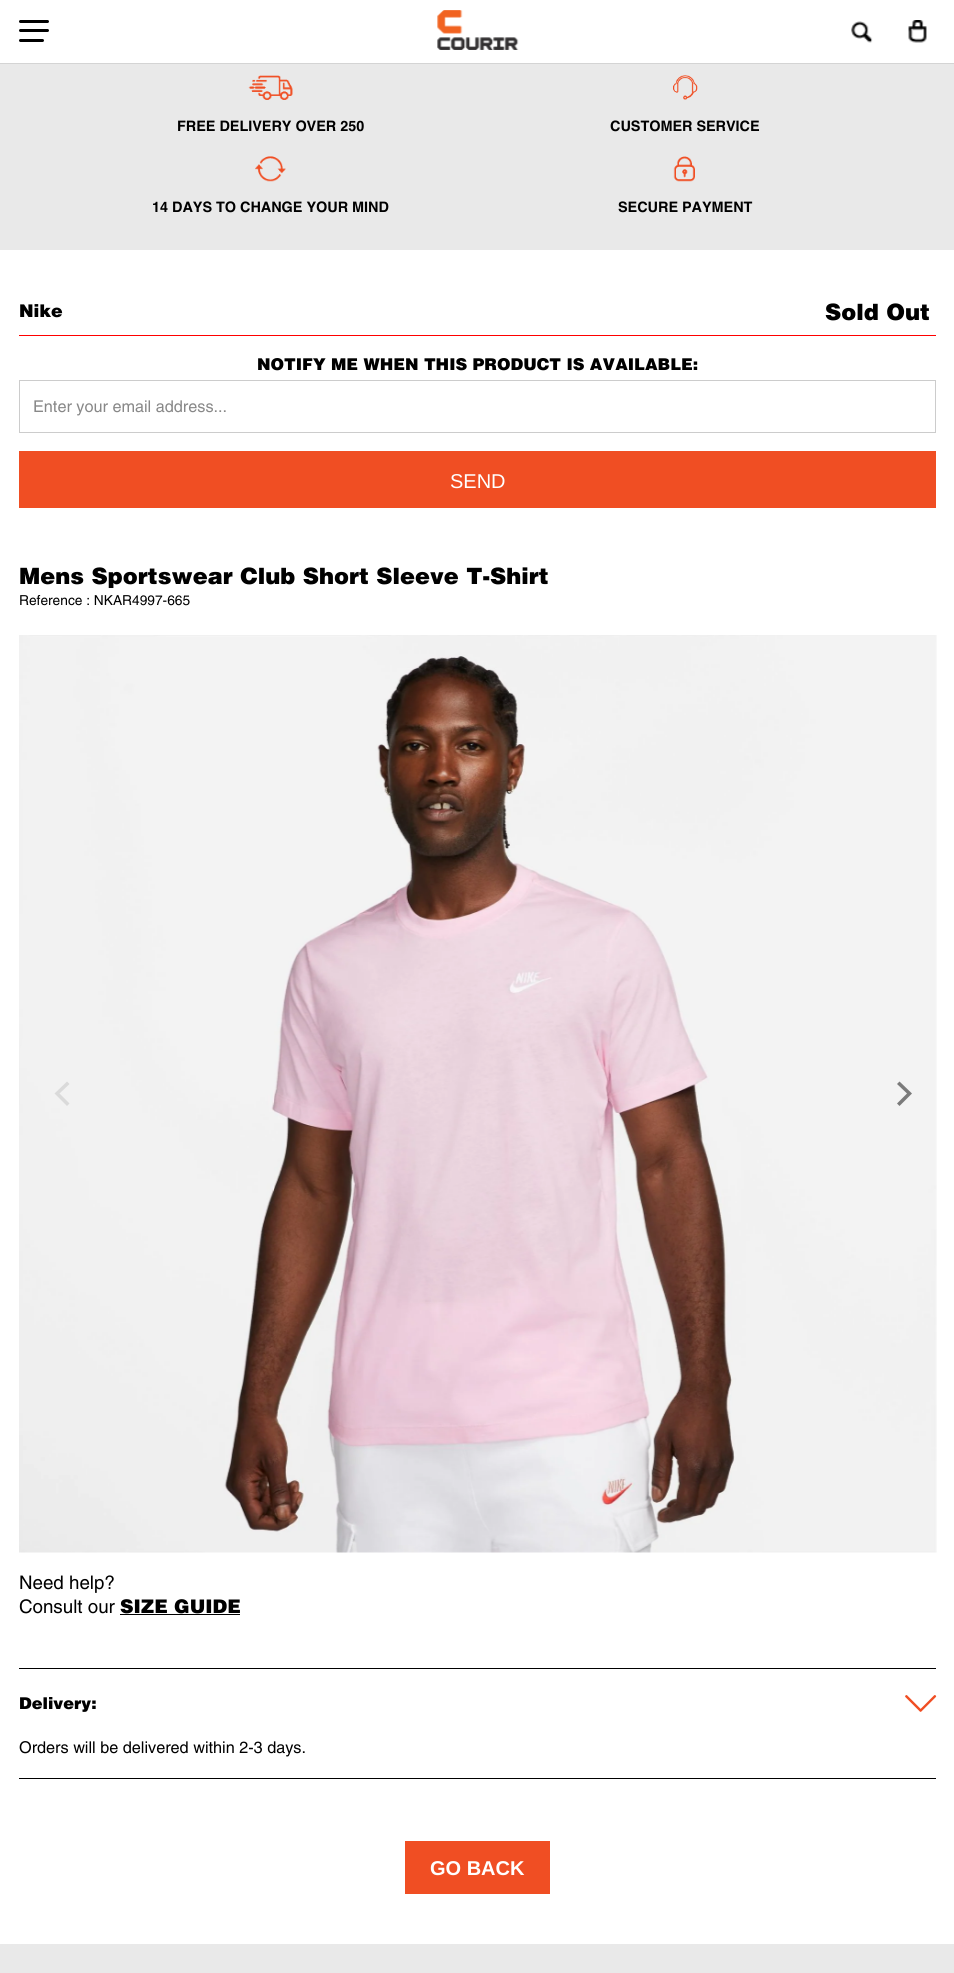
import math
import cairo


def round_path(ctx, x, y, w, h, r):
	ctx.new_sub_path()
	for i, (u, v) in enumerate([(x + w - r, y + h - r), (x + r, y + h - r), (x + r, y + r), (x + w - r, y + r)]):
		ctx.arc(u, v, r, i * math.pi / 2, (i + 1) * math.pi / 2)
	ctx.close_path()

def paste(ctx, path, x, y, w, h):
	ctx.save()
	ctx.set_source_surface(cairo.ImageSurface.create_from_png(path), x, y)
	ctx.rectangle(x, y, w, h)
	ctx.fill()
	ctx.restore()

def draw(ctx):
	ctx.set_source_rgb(1, 1, 1)
	ctx.paint()
	ctx.set_source_rgb(0.831, 0.831, 0.831)
	ctx.rectangle(0, 63, 954, 1)
	ctx.fill()
	ctx.set_source_rgb(0, 0, 0)
	round_path(ctx, 19, 20, 30, 3, 1.5)
	ctx.fill()
	round_path(ctx, 19, 29, 30, 3, 1.5)
	ctx.fill()
	round_path(ctx, 19, 39, 25, 3, 1.5)
	ctx.fill()
	paste(ctx, 'media/1.png', 437, 10, 82, 40)
	paste(ctx, 'media/2.png', 851, 21, 22, 22)
	paste(ctx, 'media/3.png', 908, 20, 19, 23)
	ctx.set_source_rgb(0.914, 0.914, 0.914)
	ctx.rectangle(0, 64, 954, 186)
	ctx.fill()
	paste(ctx, 'media/4.png', 248, 75, 45, 25)
	ctx.select_font_face('Helvetica', cairo.FONT_SLANT_NORMAL, cairo.FONT_WEIGHT_BOLD)
	ctx.set_font_size(14.4)
	ctx.set_source_rgb(0, 0, 0)
	ctx.move_to(177, 131)
	ctx.show_text('FREE DELIVERY OVER 250')
	paste(ctx, 'media/5.png', 673, 75, 25, 25)
	ctx.move_to(610, 131)
	ctx.show_text('CUSTOMER SERVICE')
	paste(ctx, 'media/6.png', 255, 156, 31, 26)
	ctx.move_to(152, 212)
	ctx.show_text('14 DAYS TO CHANGE YOUR MIND')
	paste(ctx, 'media/7.png', 673, 156, 22, 26)
	ctx.move_to(618, 212)
	ctx.show_text('SECURE PAYMENT')
	ctx.select_font_face('Helvetica Black')
	ctx.set_font_size(17.5)
	ctx.move_to(19, 317)
	ctx.show_text('Nike')
	ctx.set_font_size(22.5)
	ctx.move_to(825, 320)
	ctx.show_text('Sold Out')
	ctx.set_source_rgb(1, 0, 0)
	ctx.rectangle(19, 335, 917, 1)
	ctx.fill()
	ctx.set_font_size(16.25)
	ctx.set_source_rgb(0, 0, 0)
	ctx.move_to(257, 370)
	ctx.show_text('NOTIFY ME WHEN THIS PRODUCT IS AVAILABLE:')
	ctx.rectangle(19.5, 380.5, 916, 52)
	ctx.set_source_rgb(0.8, 0.8, 0.8)
	ctx.set_line_width(1)
	ctx.stroke()
	ctx.select_font_face('Helvetica Medium')
	ctx.set_source_rgb(0.533, 0.533, 0.533)
	ctx.move_to(33, 412)
	ctx.show_text('Enter your email address...')
	ctx.set_source_rgb(0.941, 0.306, 0.137)
	ctx.rectangle(19, 451, 917, 57)
	ctx.fill()
	ctx.select_font_face('Liberation Sans')
	ctx.set_font_size(20)
	ctx.set_source_rgb(1, 1, 1)
	ctx.move_to(450, 488)
	ctx.show_text('SEND')
	ctx.select_font_face('Helvetica Black')
	ctx.set_font_size(22.5)
	ctx.set_source_rgb(0, 0, 0)
	ctx.move_to(19, 584)
	ctx.show_text('Mens Sportswear Club Short Sleeve T-Shirt')
	ctx.select_font_face('Helvetica Medium')
	ctx.set_font_size(13.75)
	ctx.move_to(19, 605)
	ctx.show_text('Reference : NKAR4997-665')
	paste(ctx, 'media/8.png', 19, 635, 918, 918)
	ctx.set_source_rgb(0.855, 0.855, 0.855)
	ctx.new_path()
	ctx.move_to(54.5, 1093.5)
	ctx.line_to(67, 1106)
	ctx.line_to(69.5, 1103.5)
	ctx.line_to(59.5, 1093.5)
	ctx.line_to(69.5, 1084)
	ctx.line_to(67, 1081.5)
	ctx.close_path()
	ctx.fill()
	ctx.set_source_rgb(0.478, 0.478, 0.478)
	ctx.new_path()
	ctx.move_to(912, 1093.5)
	ctx.line_to(899.5, 1081.5)
	ctx.line_to(897, 1084)
	ctx.line_to(907, 1093.5)
	ctx.line_to(897, 1103.5)
	ctx.line_to(899.5, 1106)
	ctx.close_path()
	ctx.fill()
	ctx.set_font_size(18.75)
	ctx.set_source_rgb(0, 0, 0)
	ctx.move_to(19, 1589)
	ctx.show_text('Need help?')
	ctx.move_to(19, 1613)
	ctx.show_text('Consult our')
	ctx.select_font_face('Helvetica Black')
	ctx.move_to(120, 1613)
	ctx.show_text('SIZE GUIDE')
	ctx.rectangle(120, 1614, 120, 1)
	ctx.rectangle(19, 1778, 917, 1)
	ctx.rectangle(19, 1668, 917, 1)
	ctx.fill()
	ctx.set_font_size(16.25)
	ctx.move_to(19, 1709)
	ctx.show_text('Delivery:')
	paste(ctx, 'media/9.png', 905, 1695, 32, 17)
	ctx.select_font_face('Helvetica Medium')
	ctx.move_to(19, 1753)
	ctx.show_text('Orders will be delivered within 2-3 days.')
	ctx.set_source_rgb(0.941, 0.306, 0.137)
	ctx.rectangle(405, 1841, 145, 53)
	ctx.fill()
	ctx.select_font_face('Liberation Sans', cairo.FONT_SLANT_NORMAL, cairo.FONT_WEIGHT_BOLD)
	ctx.set_font_size(20)
	ctx.set_source_rgb(1, 1, 1)
	ctx.move_to(430, 1875)
	ctx.show_text('GO BACK')
	ctx.set_source_rgb(0.914, 0.914, 0.914)
	ctx.rectangle(0, 1944, 954, 29)
	ctx.fill()


surface = cairo.ImageSurface(cairo.FORMAT_RGB24, 954, 1973)
ctx = cairo.Context(surface)
options = cairo.FontOptions()
options.set_hint_metrics(cairo.HINT_METRICS_OFF)
options.set_hint_style(cairo.HINT_STYLE_NONE)
ctx.set_font_options(options)
ctx.set_miter_limit(4)
draw(ctx)
surface.write_to_png('image.png')
